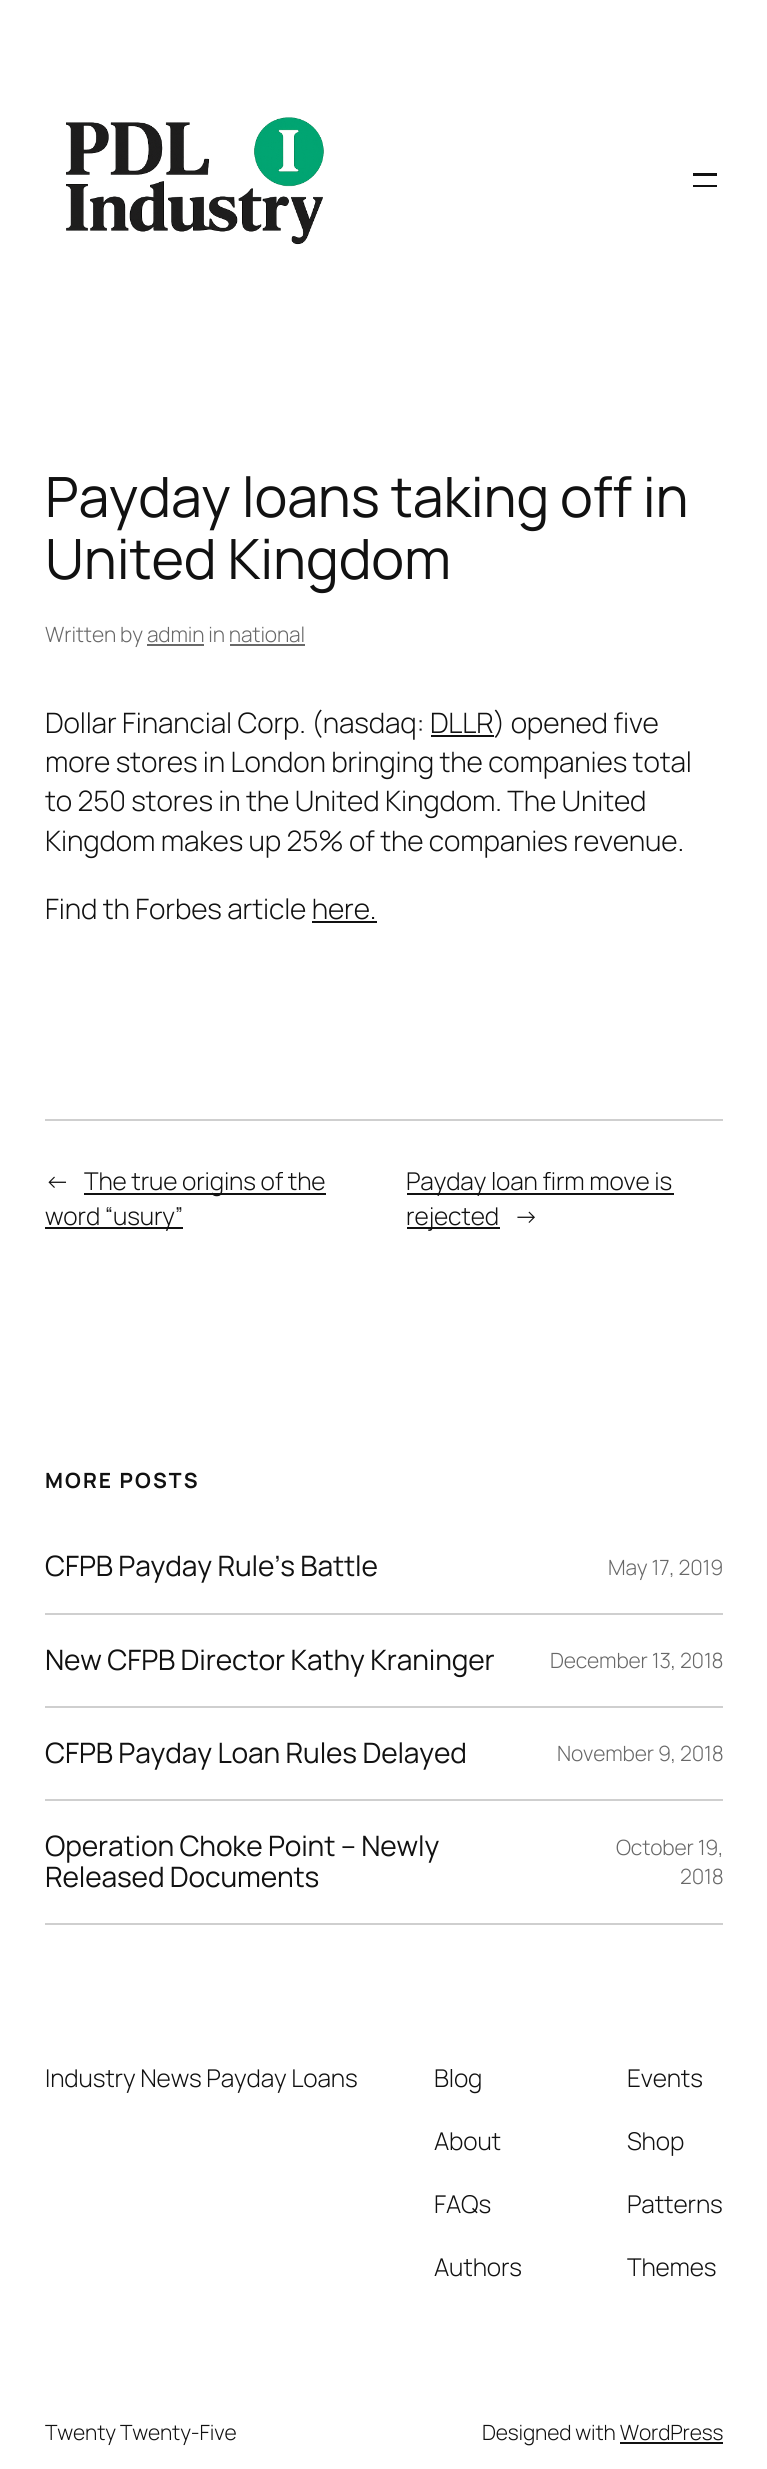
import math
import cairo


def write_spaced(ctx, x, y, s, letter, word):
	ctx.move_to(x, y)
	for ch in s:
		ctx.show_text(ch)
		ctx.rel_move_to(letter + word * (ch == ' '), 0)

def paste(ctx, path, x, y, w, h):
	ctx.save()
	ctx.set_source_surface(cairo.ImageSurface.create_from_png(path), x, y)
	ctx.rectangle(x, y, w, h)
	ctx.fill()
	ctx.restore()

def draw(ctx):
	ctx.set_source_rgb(1, 1, 1)
	ctx.paint()
	paste(ctx, 'media/1.png', 66, 117, 258, 128)
	ctx.set_source_rgb(0.067, 0.067, 0.067)
	ctx.rectangle(693, 173, 24, 3)
	ctx.fill()
	ctx.rectangle(693, 185, 24, 2)
	ctx.fill()
	ctx.select_font_face('Manrope')
	ctx.set_font_size(55.5)
	write_spaced(ctx, 45, 517, 'Payday loans taking off in', -0.15, 0)
	write_spaced(ctx, 45, 579, 'United Kingdom', -0.15, 0)
	ctx.select_font_face('Manrope Light')
	ctx.set_font_size(21)
	ctx.set_source_rgb(0.408, 0.408, 0.408)
	write_spaced(ctx, 45, 642, 'Written by admin in national', -0.15, 0)
	ctx.rectangle(147, 644, 57, 2)
	ctx.fill()
	ctx.rectangle(230, 644, 75, 2)
	ctx.fill()
	ctx.set_font_size(28.1)
	ctx.set_source_rgb(0.067, 0.067, 0.067)
	write_spaced(ctx, 45, 733, 'Dollar Financial Corp. (nasdaq: DLLR) opened five', -0.15, 0)
	ctx.rectangle(431, 735, 63, 2)
	ctx.fill()
	for x, y, s in [
		(45, 772, 'more stores in London bringing the companies total'),
		(45, 811, 'to 250 stores in the United Kingdom. The United'),
		(45, 851, 'Kingdom makes up 25% of the companies revenue.'),
		(45, 919, 'Find th Forbes article here.'),
	]:
		write_spaced(ctx, x, y, s, -0.15, 0)
	ctx.rectangle(312, 921, 65, 2)
	ctx.fill()
	ctx.set_source_rgb(0.812, 0.812, 0.812)
	ctx.rectangle(45, 1119, 678, 2)
	ctx.fill()
	ctx.set_font_size(24.5)
	ctx.set_source_rgb(0.067, 0.067, 0.067)
	write_spaced(ctx, 45, 1190, '←', -0.15, 0)
	ctx.rectangle(84, 1193, 242, 2)
	ctx.fill()
	write_spaced(ctx, 84, 1190, 'The true origins of the', -0.15, 0)
	ctx.rectangle(45, 1227, 138, 2)
	ctx.fill()
	write_spaced(ctx, 45, 1225, 'word “usury”', -0.15, 0)
	ctx.rectangle(407, 1193, 267, 2)
	ctx.fill()
	write_spaced(ctx, 406, 1190, 'Payday loan firm move is', -0.15, 0)
	ctx.rectangle(407, 1227, 93, 2)
	ctx.fill()
	write_spaced(ctx, 406, 1225, 'rejected', -0.15, 0)
	write_spaced(ctx, 514, 1225, '→', -0.15, 0)
	ctx.select_font_face('Manrope', cairo.FONT_SLANT_NORMAL, cairo.FONT_WEIGHT_BOLD)
	ctx.set_font_size(21)
	write_spaced(ctx, 45, 1488, 'MORE POSTS', 2.1, 0)
	ctx.set_source_rgb(0.812, 0.812, 0.812)
	ctx.rectangle(45, 1613, 678, 2)
	ctx.fill()
	ctx.select_font_face('Manrope')
	ctx.set_font_size(28.1)
	ctx.set_source_rgb(0.067, 0.067, 0.067)
	write_spaced(ctx, 45, 1576, 'CFPB Payday Rule’s Battle', -0.15, 0)
	ctx.select_font_face('Manrope Light')
	ctx.set_font_size(21)
	ctx.set_source_rgb(0.408, 0.408, 0.408)
	write_spaced(ctx, 608, 1575, 'May 17, 2019', -0.15, 0)
	ctx.set_source_rgb(0.812, 0.812, 0.812)
	ctx.rectangle(45, 1706, 678, 2)
	ctx.fill()
	ctx.select_font_face('Manrope')
	ctx.set_font_size(28.1)
	ctx.set_source_rgb(0.067, 0.067, 0.067)
	write_spaced(ctx, 45, 1670, 'New CFPB Director Kathy Kraninger', -0.15, 0)
	ctx.select_font_face('Manrope Light')
	ctx.set_font_size(21)
	ctx.set_source_rgb(0.408, 0.408, 0.408)
	write_spaced(ctx, 550, 1668, 'December 13, 2018', -0.15, 0)
	ctx.set_source_rgb(0.812, 0.812, 0.812)
	ctx.rectangle(45, 1799, 678, 2)
	ctx.fill()
	ctx.select_font_face('Manrope')
	ctx.set_font_size(28.1)
	ctx.set_source_rgb(0.067, 0.067, 0.067)
	write_spaced(ctx, 45, 1763, 'CFPB Payday Loan Rules Delayed', -0.15, 0)
	ctx.select_font_face('Manrope Light')
	ctx.set_font_size(21)
	ctx.set_source_rgb(0.408, 0.408, 0.408)
	write_spaced(ctx, 557, 1761, 'November 9, 2018', -0.15, 0)
	ctx.set_source_rgb(0.812, 0.812, 0.812)
	ctx.rectangle(45, 1923, 678, 2)
	ctx.fill()
	ctx.select_font_face('Manrope')
	ctx.set_font_size(28.1)
	ctx.set_source_rgb(0.067, 0.067, 0.067)
	write_spaced(ctx, 45, 1856, 'Operation Choke Point – Newly', -0.15, 0)
	write_spaced(ctx, 45, 1887, 'Released Documents', -0.15, 0)
	ctx.select_font_face('Manrope Light')
	ctx.set_font_size(21)
	ctx.set_source_rgb(0.408, 0.408, 0.408)
	write_spaced(ctx, 616, 1855, 'October 19,', -0.15, 0)
	write_spaced(ctx, 680, 1884, '2018', -0.15, 0)
	ctx.set_font_size(24.5)
	ctx.set_source_rgb(0.067, 0.067, 0.067)
	for x, y, s in [
		(45, 2087, 'Industry News Payday Loans'),
		(434, 2087, 'Blog'),
		(434, 2150, 'About'),
		(434, 2213, 'FAQs'),
		(434, 2276, 'Authors'),
		(627, 2087, 'Events'),
		(627, 2150, 'Shop'),
		(627, 2213, 'Patterns'),
		(627, 2276, 'Themes'),
	]:
		write_spaced(ctx, x, y, s, -0.15, 0)
	ctx.set_font_size(21)
	write_spaced(ctx, 45, 2440, 'Twenty Twenty-Five', -0.15, 0)
	write_spaced(ctx, 482, 2440, 'Designed with WordPress', -0.15, 0)
	ctx.rectangle(620, 2442, 103, 2)
	ctx.fill()


surface = cairo.ImageSurface(cairo.FORMAT_RGB24, 767, 2469)
ctx = cairo.Context(surface)
options = cairo.FontOptions()
options.set_hint_metrics(cairo.HINT_METRICS_OFF)
options.set_hint_style(cairo.HINT_STYLE_NONE)
ctx.set_font_options(options)
ctx.set_miter_limit(4)
draw(ctx)
surface.write_to_png('image.png')
